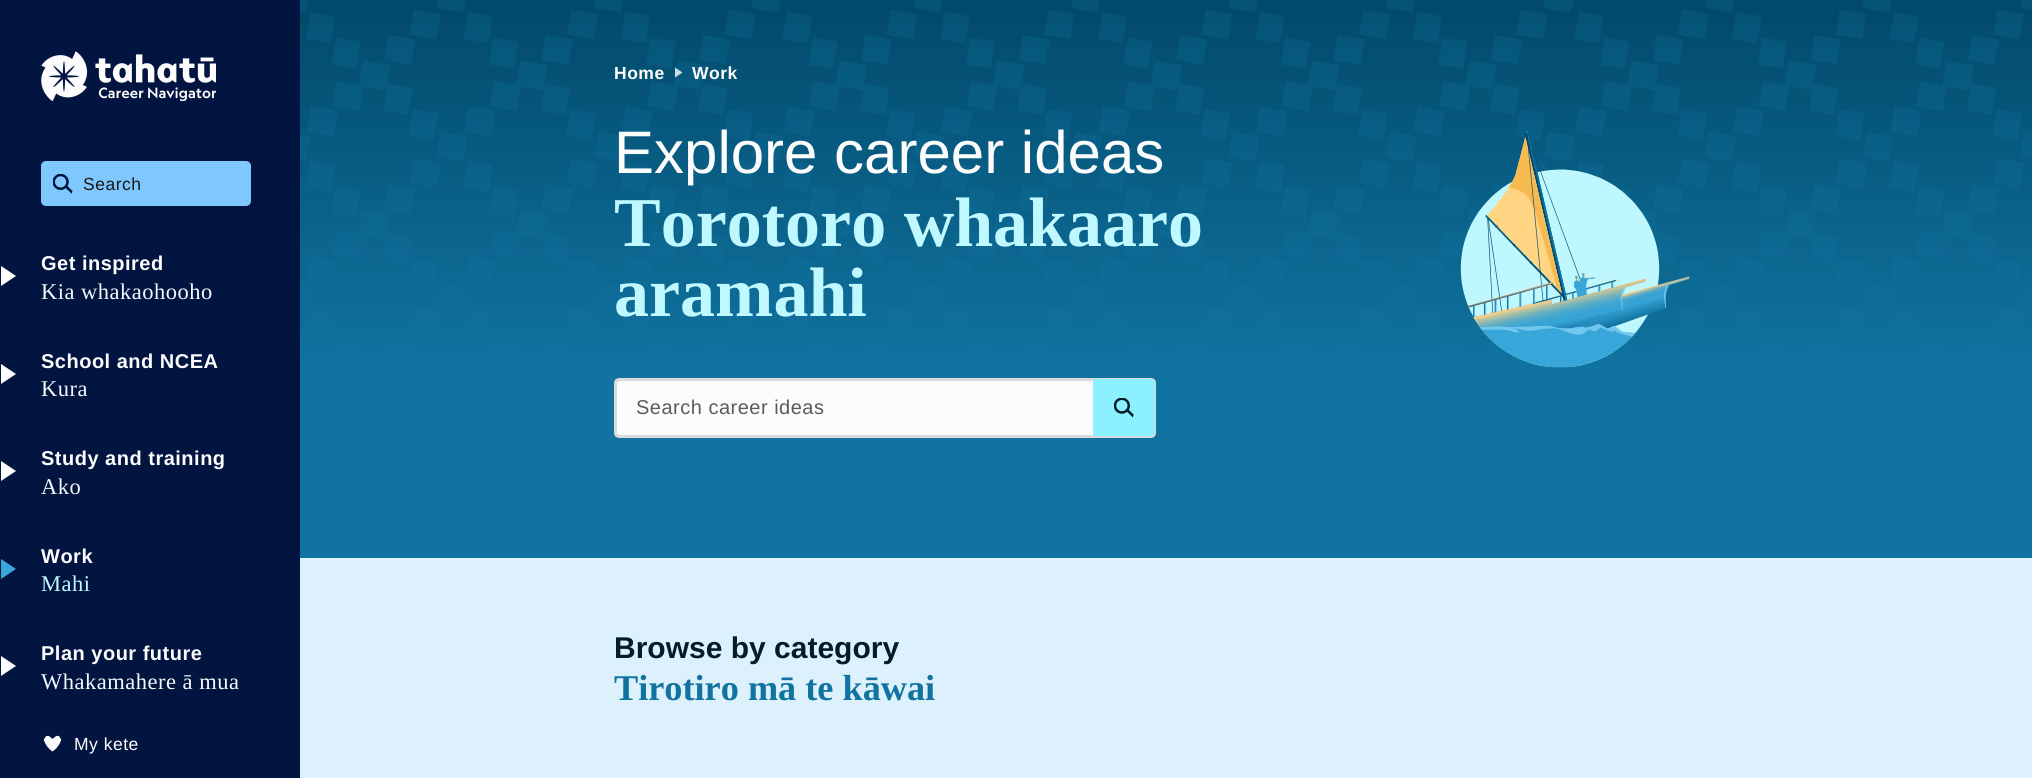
import math
import cairo


def write_spaced(ctx, x, y, s, letter, word):
	ctx.move_to(x, y)
	for ch in s:
		ctx.show_text(ch)
		ctx.rel_move_to(letter + word * (ch == ' '), 0)

def round_path(ctx, x, y, w, h, r):
	ctx.new_sub_path()
	for i, (u, v) in enumerate([(x + w - r, y + h - r), (x + r, y + h - r), (x + r, y + r), (x + w - r, y + r)]):
		ctx.arc(u, v, r, i * math.pi / 2, (i + 1) * math.pi / 2)
	ctx.close_path()

def paste(ctx, path, x, y, w, h):
	ctx.save()
	ctx.set_source_surface(cairo.ImageSurface.create_from_png(path), x, y)
	ctx.rectangle(x, y, w, h)
	ctx.fill()
	ctx.restore()

def draw(ctx):
	ctx.set_source_rgb(0.008, 0.082, 0.251)
	ctx.paint()
	paste(ctx, 'media/1.png', 41, 51, 175, 50)
	ctx.set_source_rgb(0.494, 0.784, 0.996)
	round_path(ctx, 41, 161, 210, 45, 5)
	ctx.fill()
	paste(ctx, 'media/2.png', 53, 174, 20, 20)
	ctx.select_font_face('Liberation Sans')
	ctx.set_font_size(17.5)
	ctx.set_source_rgb(0.094, 0.094, 0.094)
	write_spaced(ctx, 83, 190, 'Search', 0.5, 0)
	ctx.set_source_rgb(0.988, 0.988, 0.988)
	ctx.new_path()
	ctx.move_to(1, 266)
	ctx.line_to(16, 276)
	ctx.line_to(1, 286)
	ctx.close_path()
	ctx.fill()
	ctx.select_font_face('Liberation Sans', cairo.FONT_SLANT_NORMAL, cairo.FONT_WEIGHT_BOLD)
	ctx.set_font_size(20)
	write_spaced(ctx, 41, 270, 'Get inspired', 0.5, 0)
	ctx.select_font_face('Liberation Serif')
	ctx.set_font_size(22.5)
	ctx.set_source_rgb(0.957, 0.973, 0.988)
	write_spaced(ctx, 41, 299, 'Kia whakaohooho', 0.5, 0)
	ctx.set_source_rgb(0.988, 0.988, 0.988)
	ctx.new_path()
	ctx.move_to(1, 364)
	ctx.line_to(16, 374)
	ctx.line_to(1, 384)
	ctx.close_path()
	ctx.fill()
	ctx.select_font_face('Liberation Sans', cairo.FONT_SLANT_NORMAL, cairo.FONT_WEIGHT_BOLD)
	ctx.set_font_size(20)
	write_spaced(ctx, 41, 368, 'School and NCEA', 0.5, 0)
	ctx.select_font_face('Liberation Serif')
	ctx.set_font_size(22.5)
	ctx.set_source_rgb(0.957, 0.973, 0.988)
	write_spaced(ctx, 41, 396, 'Kura', 0.5, 0)
	ctx.set_source_rgb(0.988, 0.988, 0.988)
	ctx.new_path()
	ctx.move_to(1, 461)
	ctx.line_to(16, 471)
	ctx.line_to(1, 481)
	ctx.close_path()
	ctx.fill()
	ctx.select_font_face('Liberation Sans', cairo.FONT_SLANT_NORMAL, cairo.FONT_WEIGHT_BOLD)
	ctx.set_font_size(20)
	write_spaced(ctx, 41, 465, 'Study and training', 0.5, 0)
	ctx.select_font_face('Liberation Serif')
	ctx.set_font_size(22.5)
	ctx.set_source_rgb(0.957, 0.973, 0.988)
	write_spaced(ctx, 41, 494, 'Ako', 0.5, 0)
	ctx.set_source_rgb(0.22, 0.651, 0.847)
	ctx.new_path()
	ctx.move_to(1, 559)
	ctx.line_to(16, 569)
	ctx.line_to(1, 579)
	ctx.close_path()
	ctx.fill()
	ctx.select_font_face('Liberation Sans', cairo.FONT_SLANT_NORMAL, cairo.FONT_WEIGHT_BOLD)
	ctx.set_font_size(20)
	ctx.set_source_rgb(0.988, 0.988, 0.988)
	write_spaced(ctx, 41, 563, 'Work', 0.5, 0)
	ctx.select_font_face('Liberation Serif')
	ctx.set_font_size(22.5)
	ctx.set_source_rgb(0.749, 0.969, 1)
	write_spaced(ctx, 41, 591, 'Mahi', 0.5, 0)
	ctx.set_source_rgb(0.988, 0.988, 0.988)
	ctx.new_path()
	ctx.move_to(1, 656)
	ctx.line_to(16, 666)
	ctx.line_to(1, 676)
	ctx.close_path()
	ctx.fill()
	ctx.select_font_face('Liberation Sans', cairo.FONT_SLANT_NORMAL, cairo.FONT_WEIGHT_BOLD)
	ctx.set_font_size(20)
	write_spaced(ctx, 41, 660, 'Plan your future', 0.5, 0)
	ctx.select_font_face('Liberation Serif')
	ctx.set_font_size(22.5)
	ctx.set_source_rgb(0.957, 0.973, 0.988)
	write_spaced(ctx, 41, 689, 'Whakamahere ā mua', 0.5, 0)
	paste(ctx, 'media/3.png', 43, 735, 19, 17)
	ctx.select_font_face('Liberation Sans')
	ctx.set_font_size(17.5)
	ctx.set_source_rgb(0.988, 0.988, 0.988)
	write_spaced(ctx, 74, 750, 'My kete', 0.5, 0)
	ctx.set_source_rgb(0.008, 0.29, 0.42)
	ctx.rectangle(300, 0, 1732, 366)
	ctx.fill()
	paste(ctx, 'media/4.png', 300, 0, 1732, 366)
	gradient = cairo.LinearGradient(300, 7.5, 300, 368)
	gradient.add_color_stop_rgba(0, 0.063, 0.451, 0.627, 0)
	gradient.add_color_stop_rgba(1, 0.063, 0.451, 0.627, 1)
	ctx.set_source(gradient)
	ctx.rectangle(300, 24, 1732, 344)
	ctx.fill()
	ctx.select_font_face('Liberation Sans', cairo.FONT_SLANT_NORMAL, cairo.FONT_WEIGHT_BOLD)
	ctx.set_source_rgb(0.988, 0.988, 0.988)
	write_spaced(ctx, 614, 79, 'Home', 0.5, 0)
	ctx.set_source_rgba(0.988, 0.988, 0.988, 0.8)
	ctx.new_path()
	ctx.move_to(675, 67.5)
	ctx.line_to(682.5, 72.5)
	ctx.line_to(675, 77.5)
	ctx.close_path()
	ctx.fill()
	ctx.set_source_rgb(0.988, 0.988, 0.988)
	write_spaced(ctx, 692, 79, 'Work', 0.5, 0)
	ctx.set_source_rgb(0.063, 0.451, 0.627)
	ctx.rectangle(300, 368, 1732, 190)
	ctx.fill()
	ctx.select_font_face('Liberation Sans')
	ctx.set_font_size(60)
	ctx.set_source_rgb(0.988, 0.988, 0.988)
	ctx.move_to(614, 173)
	ctx.show_text('Explore career ideas')
	ctx.select_font_face('Liberation Serif', cairo.FONT_SLANT_NORMAL, cairo.FONT_WEIGHT_BOLD)
	ctx.set_font_size(70)
	ctx.set_source_rgb(0.749, 0.969, 1)
	ctx.move_to(614, 246)
	ctx.show_text('Torotoro whakaaro')
	ctx.move_to(614, 316)
	ctx.show_text('aramahi')
	paste(ctx, 'media/5.png', 1460, 130, 230, 238)
	ctx.set_source_rgb(0.988, 0.988, 0.988)
	round_path(ctx, 615.5, 379.5, 539, 57, 3.5)
	ctx.fill_preserve()
	ctx.set_source_rgb(0.859, 0.859, 0.859)
	ctx.set_line_width(3)
	ctx.stroke()
	ctx.select_font_face('Liberation Sans')
	ctx.set_font_size(20)
	ctx.set_source_rgb(0.357, 0.357, 0.357)
	write_spaced(ctx, 636, 414, 'Search career ideas', 0.5, 0)
	ctx.set_source_rgb(0.545, 0.945, 1)
	ctx.new_path()
	ctx.move_to(1093, 379)
	ctx.line_to(1150, 379)
	ctx.curve_to(1153, 379, 1155, 381, 1155, 384)
	ctx.line_to(1155, 431)
	ctx.curve_to(1155, 434, 1153, 436, 1150, 436)
	ctx.line_to(1093, 436)
	ctx.close_path()
	ctx.fill()
	paste(ctx, 'media/6.png', 1114, 398, 20, 20)
	ctx.set_source_rgb(0.863, 0.945, 0.984)
	ctx.rectangle(300, 558, 1732, 220)
	ctx.fill()
	ctx.select_font_face('Liberation Sans', cairo.FONT_SLANT_NORMAL, cairo.FONT_WEIGHT_BOLD)
	ctx.set_font_size(30)
	ctx.set_source_rgb(0.004, 0.114, 0.165)
	ctx.move_to(614, 658)
	ctx.show_text('Browse by category')
	ctx.select_font_face('Liberation Serif', cairo.FONT_SLANT_NORMAL, cairo.FONT_WEIGHT_BOLD)
	ctx.set_font_size(36.25)
	ctx.set_source_rgb(0.063, 0.451, 0.627)
	ctx.move_to(614, 700)
	ctx.show_text('Tirotiro mā te kāwai')


surface = cairo.ImageSurface(cairo.FORMAT_RGB24, 2032, 778)
ctx = cairo.Context(surface)
options = cairo.FontOptions()
options.set_hint_metrics(cairo.HINT_METRICS_OFF)
options.set_hint_style(cairo.HINT_STYLE_NONE)
ctx.set_font_options(options)
ctx.set_miter_limit(4)
draw(ctx)
surface.write_to_png('image.png')
